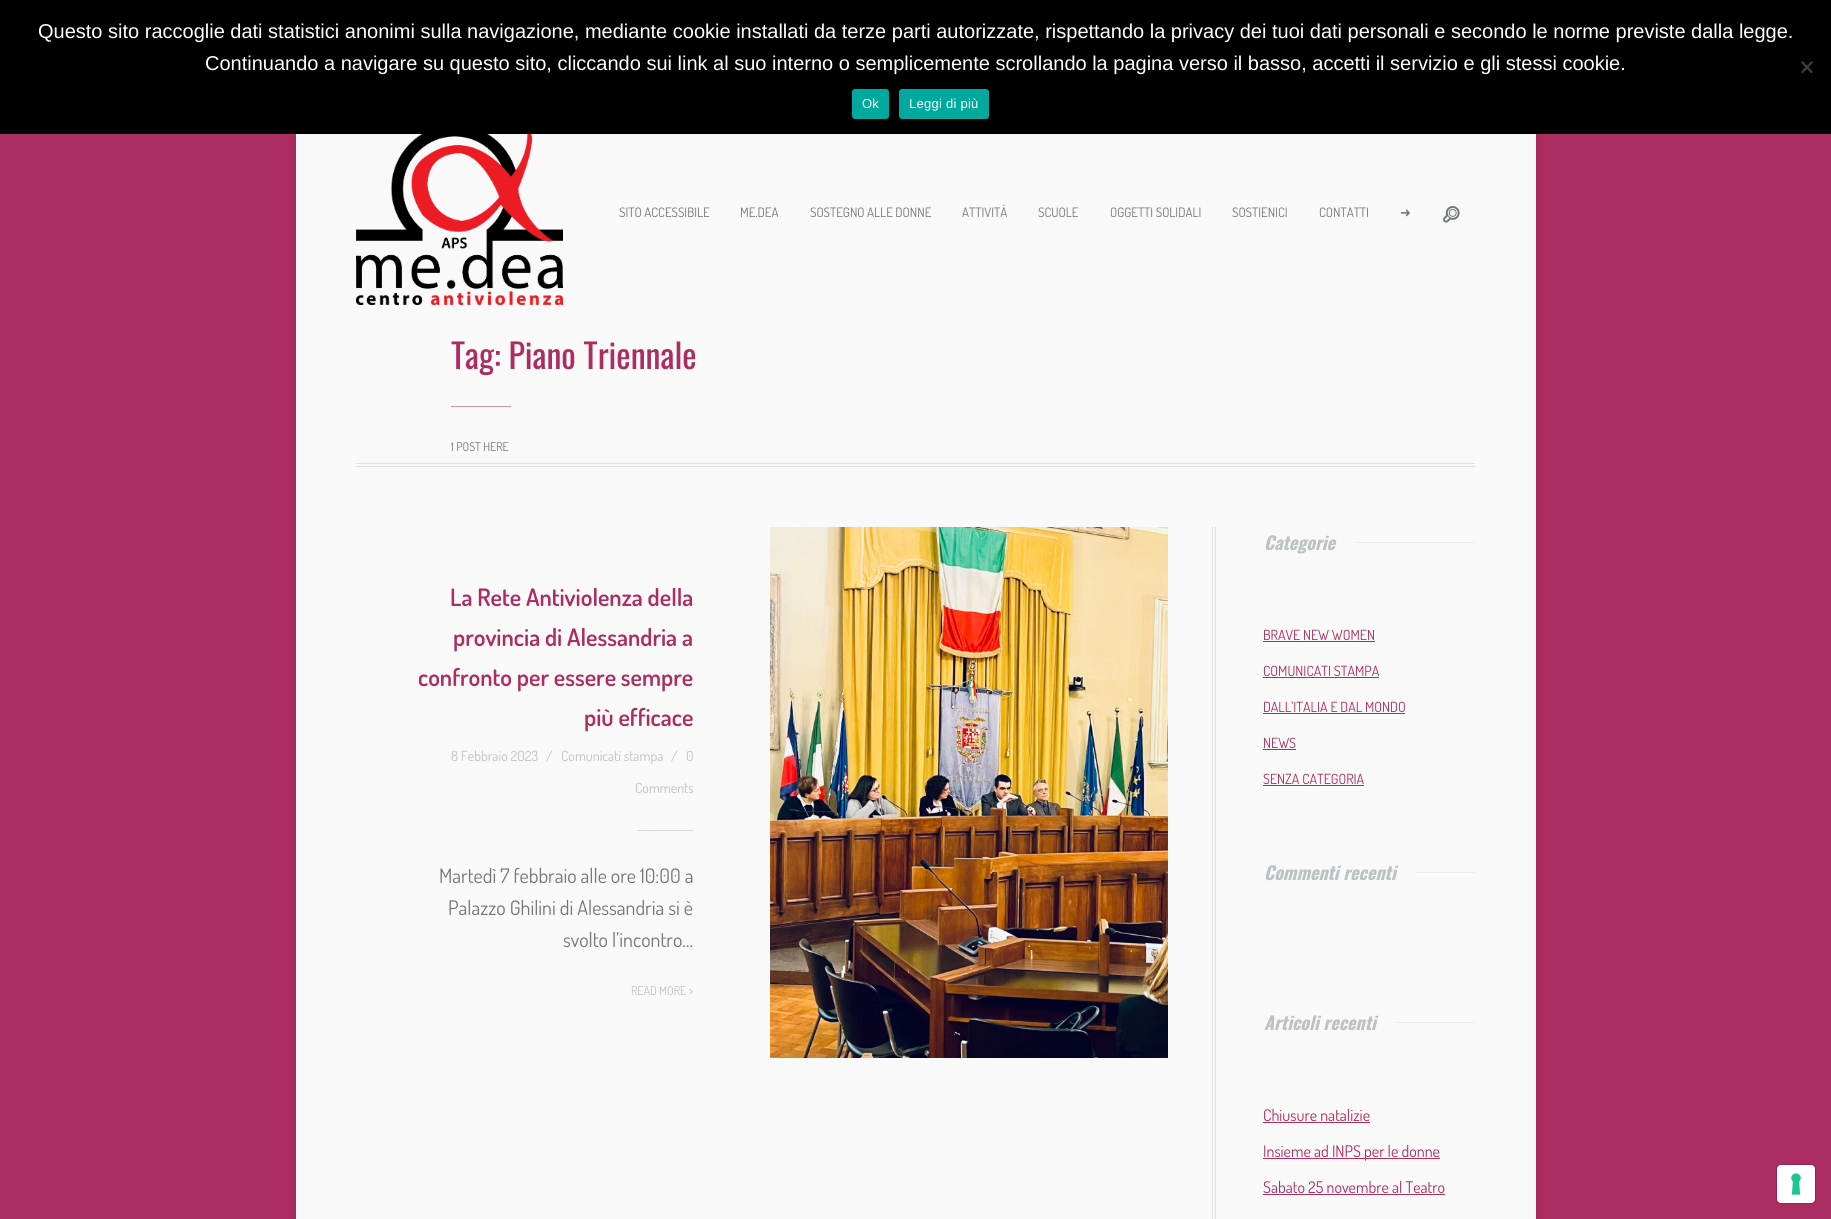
import math
import cairo


def write_spaced(ctx, x, y, s, letter, word):
	ctx.move_to(x, y)
	for ch in s:
		ctx.show_text(ch)
		ctx.rel_move_to(letter + word * (ch == ' '), 0)

def round_path(ctx, x, y, w, h, r):
	ctx.new_sub_path()
	for i, (u, v) in enumerate([(x + w - r, y + h - r), (x + r, y + h - r), (x + r, y + r), (x + w - r, y + r)]):
		ctx.arc(u, v, r, i * math.pi / 2, (i + 1) * math.pi / 2)
	ctx.close_path()

def blur_box(ctx, x, y, w, h, r, blur, alpha):
	ctx.push_group_with_content(cairo.CONTENT_ALPHA)
	ctx.set_operator(cairo.OPERATOR_SOURCE)
	for i in range(15, -16, -2):
		e = blur * i / 6
		if min(w, h) + 2 * e > 0:
			ctx.set_source_rgba(0, 0, 0, alpha * math.erfc((i - 1) / 8.5) / 2)
			round_path(ctx, x - e, y - e, w + 2 * e, h + 2 * e, max(0, min(r + e + blur * .6, min(w, h) / 2 + e)))
			ctx.fill()
	ctx.mask(ctx.pop_group())

def paste(ctx, path, x, y, w, h):
	ctx.save()
	ctx.set_source_surface(cairo.ImageSurface.create_from_png(path), x, y)
	ctx.rectangle(x, y, w, h)
	ctx.fill()
	ctx.restore()

def draw(ctx):
	ctx.set_source_rgb(0.675, 0.176, 0.38)
	ctx.paint()
	ctx.set_source_rgb(0, 0, 0)
	blur_box(ctx, 296, 60, 1240, 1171, 0, 4, 0.1)
	ctx.set_source_rgb(0, 0, 0)
	ctx.rectangle(0, 0, 1831, 134)
	ctx.fill()
	ctx.select_font_face('Liberation Sans')
	ctx.set_font_size(20)
	ctx.set_source_rgb(1, 1, 1)
	ctx.move_to(38, 38)
	ctx.show_text('Questo sito raccoglie dati statistici anonimi sulla navigazione, mediante cookie installati da terze parti autorizzate, rispettando la privacy dei tuoi dati personali e secondo le norme previste dalla legge.')
	ctx.move_to(205, 70)
	ctx.show_text('Continuando a navigare su questo sito, cliccando sui link al suo interno o semplicemente scrollando la pagina verso il basso, accetti il servizio e gli stessi cookie.')
	ctx.set_source_rgb(0.251, 0.251, 0.251)
	ctx.new_path()
	ctx.move_to(1811.5, 61)
	ctx.line_to(1813, 62.5)
	ctx.line_to(1802.5, 73.5)
	ctx.line_to(1801, 72)
	ctx.close_path()
	ctx.fill()
	ctx.new_path()
	ctx.move_to(1801, 62.5)
	ctx.line_to(1802.5, 61)
	ctx.line_to(1813, 72)
	ctx.line_to(1811.5, 73.5)
	ctx.close_path()
	ctx.fill()
	ctx.set_source_rgb(0, 0.663, 0.616)
	round_path(ctx, 852, 89, 37, 30, 3)
	ctx.fill()
	ctx.set_font_size(13)
	ctx.set_source_rgb(1, 1, 1)
	write_spaced(ctx, 862, 108, 'Ok', 0.25, 0)
	ctx.set_source_rgb(0, 0.663, 0.616)
	round_path(ctx, 899, 89, 90, 30, 3)
	ctx.fill()
	ctx.set_source_rgb(1, 1, 1)
	write_spaced(ctx, 909, 108, 'Leggi di più', 0.25, 0)
	ctx.set_source_rgb(0.976, 0.976, 0.976)
	ctx.rectangle(296, 134, 1240, 1085)
	ctx.fill()
	paste(ctx, 'media/1.png', 356, 134, 207, 171)
	ctx.select_font_face('Dosis')
	ctx.set_source_rgb(0.443, 0.471, 0.475)
	for x, y, s in [
		(619, 217, 'SITO ACCESSIBILE'),
		(740, 217, 'ME.DEA'),
		(810, 217, 'SOSTEGNO ALLE DONNE'),
		(962, 217, 'ATTIVITÀ'),
		(1038, 217, 'SCUOLE'),
		(1110, 217, 'OGGETTI SOLIDALI'),
		(1232, 217, 'SOSTIENICI'),
		(1319, 217, 'CONTATTI'),
	]:
		ctx.move_to(x, y)
		ctx.show_text(s)
	ctx.select_font_face('DejaVu Sans')
	ctx.move_to(1400, 217)
	ctx.show_text('➜')
	paste(ctx, 'media/2.png', 1443, 206, 17, 17)
	ctx.select_font_face('Oswald')
	ctx.set_font_size(34)
	ctx.set_source_rgb(0.675, 0.176, 0.376)
	ctx.move_to(451, 369)
	ctx.show_text('Tag: Piano Triennale')
	ctx.set_source_rgb(0.827, 0.576, 0.678)
	ctx.rectangle(451, 406, 60, 1)
	ctx.fill()
	ctx.select_font_face('Dosis')
	ctx.set_font_size(12)
	ctx.set_source_rgb(0.443, 0.471, 0.475)
	ctx.move_to(451, 451)
	ctx.show_text('1 POST HERE')
	ctx.set_source_rgb(0.871, 0.875, 0.875)
	ctx.rectangle(356, 463, 1119, 1)
	ctx.fill()
	ctx.rectangle(356, 466, 1119, 1)
	ctx.fill()
	ctx.select_font_face('Dosis SemiBold')
	ctx.set_font_size(24)
	ctx.set_source_rgb(0.675, 0.176, 0.376)
	for x, y, s in [
		(450, 606, 'La Rete Antiviolenza della'),
		(453, 646, 'provincia di Alessandria a'),
		(418, 686, 'confronto per essere sempre'),
		(584, 726, 'più efficace'),
	]:
		ctx.move_to(x, y)
		ctx.show_text(s)
	ctx.select_font_face('Dosis')
	ctx.set_font_size(14)
	ctx.set_source_rgb(0.729, 0.761, 0.769)
	for x, y, s in [
		(451, 761, '8 Febbraio 2023'),
		(546, 761, '/'),
		(561, 761, 'Comunicati stampa'),
		(671, 761, '/'),
		(686, 761, '0'),
		(635, 793, 'Comments'),
	]:
		ctx.move_to(x, y)
		ctx.show_text(s)
	ctx.set_source_rgb(0.804, 0.827, 0.831)
	ctx.move_to(637, 830)
	ctx.show_text('____________')
	ctx.set_font_size(20)
	ctx.set_source_rgb(0.443, 0.471, 0.475)
	for x, y, s in [
		(439, 883, 'Martedì 7 febbraio alle ore 10:00 a'),
		(448, 915, 'Palazzo Ghilini di Alessandria si è'),
		(563, 947, 'svolto l’incontro…'),
	]:
		ctx.move_to(x, y)
		ctx.show_text(s)
	ctx.set_font_size(12)
	ctx.set_source_rgb(0.729, 0.761, 0.769)
	ctx.move_to(631, 995)
	ctx.show_text('READ MORE >')
	paste(ctx, 'media/3.png', 770, 527, 398, 531)
	ctx.set_source_rgb(0.871, 0.875, 0.875)
	ctx.rectangle(1215, 527, 1, 692)
	ctx.fill()
	ctx.rectangle(1212, 527, 1, 692)
	ctx.fill()
	ctx.select_font_face('Oswald', cairo.FONT_SLANT_ITALIC, cairo.FONT_WEIGHT_BOLD)
	ctx.set_font_size(18)
	ctx.set_source_rgb(0.729, 0.761, 0.769)
	ctx.move_to(1264, 550)
	ctx.show_text('Categorie')
	ctx.set_source_rgb(0.925, 0.933, 0.933)
	ctx.rectangle(1355, 542, 120, 1)
	ctx.fill()
	ctx.select_font_face('Dosis')
	ctx.set_font_size(14)
	ctx.set_source_rgb(0.675, 0.176, 0.376)
	ctx.move_to(1263, 640)
	ctx.show_text('BRAVE NEW WOMEN')
	ctx.rectangle(1263, 641, 112, 1)
	ctx.fill()
	ctx.move_to(1263, 676)
	ctx.show_text('COMUNICATI STAMPA')
	ctx.rectangle(1263, 677, 116, 1)
	ctx.fill()
	ctx.move_to(1263, 712)
	ctx.show_text('DALL\'ITALIA E DAL MONDO')
	ctx.rectangle(1263, 713, 142, 1)
	ctx.fill()
	ctx.move_to(1263, 748)
	ctx.show_text('NEWS')
	ctx.rectangle(1263, 749, 33, 1)
	ctx.fill()
	ctx.move_to(1263, 784)
	ctx.show_text('SENZA CATEGORIA')
	ctx.rectangle(1263, 785, 101, 1)
	ctx.fill()
	ctx.select_font_face('Oswald', cairo.FONT_SLANT_ITALIC, cairo.FONT_WEIGHT_BOLD)
	ctx.set_font_size(18)
	ctx.set_source_rgb(0.729, 0.761, 0.769)
	ctx.move_to(1264, 880)
	ctx.show_text('Commenti recenti')
	ctx.set_source_rgb(0.925, 0.933, 0.933)
	ctx.rectangle(1415, 872, 60, 1)
	ctx.fill()
	ctx.set_source_rgb(0.729, 0.761, 0.769)
	ctx.move_to(1264, 1030)
	ctx.show_text('Articoli recenti')
	ctx.set_source_rgb(0.925, 0.933, 0.933)
	ctx.rectangle(1395, 1022, 80, 1)
	ctx.fill()
	ctx.select_font_face('Dosis')
	ctx.set_font_size(16)
	ctx.set_source_rgb(0.675, 0.176, 0.376)
	ctx.move_to(1263, 1121)
	ctx.show_text('Chiusure natalizie')
	ctx.rectangle(1263, 1122, 107, 1)
	ctx.fill()
	ctx.rectangle(1263, 1158, 177, 1)
	ctx.fill()
	ctx.move_to(1263, 1157)
	ctx.show_text('Insieme ad INPS per le donne')
	ctx.move_to(1263, 1193)
	ctx.show_text('Sabato 25 novembre al Teatro')
	ctx.rectangle(1263, 1194, 182, 1)
	ctx.fill()
	round_path(ctx, 1776.5, 1164.5, 39, 39, 4.5)
	ctx.set_source_rgb(0.573, 0.149, 0.322)
	ctx.set_line_width(1)
	ctx.stroke()
	ctx.set_source_rgb(1, 1, 1)
	round_path(ctx, 1777, 1165, 38, 38, 4)
	ctx.fill()
	paste(ctx, 'media/4.png', 1791, 1173, 10, 22)


surface = cairo.ImageSurface(cairo.FORMAT_RGB24, 1831, 1219)
ctx = cairo.Context(surface)
options = cairo.FontOptions()
options.set_hint_metrics(cairo.HINT_METRICS_OFF)
options.set_hint_style(cairo.HINT_STYLE_NONE)
ctx.set_font_options(options)
ctx.set_miter_limit(4)
draw(ctx)
surface.write_to_png('image.png')
